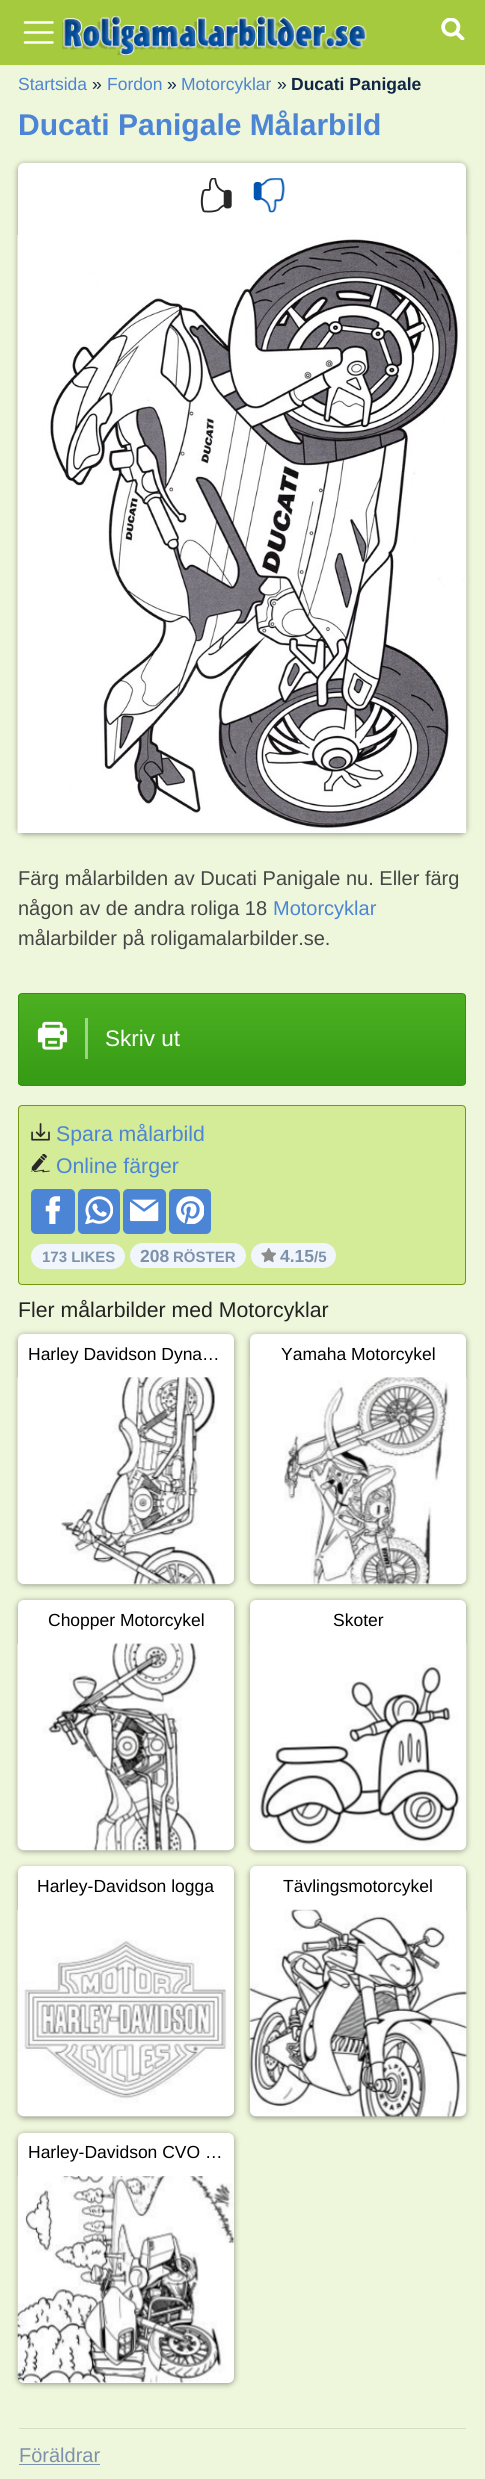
import math
import cairo


def round_path(ctx, x, y, w, h, r):
	ctx.new_sub_path()
	for i, (u, v) in enumerate([(x + w - r, y + h - r), (x + r, y + h - r), (x + r, y + r), (x + w - r, y + r)]):
		ctx.arc(u, v, r, i * math.pi / 2, (i + 1) * math.pi / 2)
	ctx.close_path()

def blur_box(ctx, x, y, w, h, r, blur, alpha):
	ctx.push_group_with_content(cairo.CONTENT_ALPHA)
	ctx.set_operator(cairo.OPERATOR_SOURCE)
	for i in range(15, -16, -2):
		e = blur * i / 6
		if min(w, h) + 2 * e > 0:
			ctx.set_source_rgba(0, 0, 0, alpha * math.erfc((i - 1) / 8.5) / 2)
			round_path(ctx, x - e, y - e, w + 2 * e, h + 2 * e, max(0, min(r + e + blur * .6, min(w, h) / 2 + e)))
			ctx.fill()
	ctx.mask(ctx.pop_group())

def paste(ctx, path, x, y, w, h):
	ctx.save()
	ctx.set_source_surface(cairo.ImageSurface.create_from_png(path), x, y)
	ctx.rectangle(x, y, w, h)
	ctx.fill()
	ctx.restore()

def draw(ctx):
	ctx.set_source_rgb(0.933, 0.961, 0.859)
	ctx.paint()
	ctx.set_source_rgb(0.647, 0.792, 0.243)
	ctx.rectangle(0, 0, 485, 65)
	ctx.fill()
	ctx.new_path()
	ctx.move_to(25, 22.5)
	ctx.line_to(52.5, 22.5)
	ctx.move_to(25, 32.5)
	ctx.line_to(52.5, 32.5)
	ctx.move_to(25, 42.5)
	ctx.line_to(52.5, 42.5)
	ctx.set_source_rgb(1, 1, 1)
	ctx.set_line_width(2.5)
	ctx.set_line_cap(cairo.LINE_CAP_ROUND)
	ctx.stroke()
	paste(ctx, 'media/1.png', 62, 16, 305, 39)
	paste(ctx, 'media/2.png', 441, 18, 24, 22)
	ctx.select_font_face('Liberation Sans')
	ctx.set_font_size(17.5)
	ctx.set_source_rgb(0.298, 0.522, 0.835)
	ctx.move_to(18, 90)
	ctx.show_text('Startsida')
	ctx.set_source_rgb(0.063, 0.149, 0.271)
	ctx.move_to(92, 90)
	ctx.show_text('»')
	ctx.set_source_rgb(0.298, 0.522, 0.835)
	ctx.move_to(107, 90)
	ctx.show_text('Fordon')
	ctx.set_source_rgb(0.063, 0.149, 0.271)
	ctx.move_to(167, 90)
	ctx.show_text('»')
	ctx.set_source_rgb(0.298, 0.522, 0.835)
	ctx.move_to(181, 90)
	ctx.show_text('Motorcyklar')
	ctx.set_source_rgb(0.063, 0.149, 0.271)
	ctx.move_to(277, 90)
	ctx.show_text('»')
	ctx.select_font_face('Liberation Sans', cairo.FONT_SLANT_NORMAL, cairo.FONT_WEIGHT_BOLD)
	ctx.move_to(291, 90)
	ctx.show_text('Ducati Panigale')
	ctx.set_font_size(30)
	ctx.set_source_rgb(0.298, 0.522, 0.835)
	ctx.move_to(18, 135)
	ctx.show_text('Ducati Panigale Målarbild')
	ctx.set_source_rgb(0, 0, 0)
	blur_box(ctx, 18, 164, 448, 670, 6, 3, 0.4)
	ctx.set_source_rgb(1, 1, 1)
	round_path(ctx, 18, 163, 448, 670, 6)
	ctx.fill()
	paste(ctx, 'media/3.png', 200, 178, 32, 35)
	paste(ctx, 'media/4.png', 253, 178, 32, 35)
	ctx.rectangle(18, 832, 448, 1)
	ctx.fill()
	paste(ctx, 'media/5.png', 17, 235, 450, 598)
	ctx.select_font_face('Liberation Sans')
	ctx.set_font_size(20)
	ctx.set_source_rgb(0.275, 0.275, 0.275)
	ctx.move_to(18, 885)
	ctx.show_text('Färg målarbilden av Ducati Panigale nu. Eller färg')
	ctx.move_to(18, 915)
	ctx.show_text('någon av de andra roliga 18')
	ctx.set_source_rgb(0.298, 0.522, 0.835)
	ctx.move_to(273, 915)
	ctx.show_text('Motorcyklar')
	ctx.set_source_rgb(0.275, 0.275, 0.275)
	ctx.move_to(18, 945)
	ctx.show_text('målarbilder på roligamalarbilder.se.')
	ctx.save()
	round_path(ctx, 18, 993, 448, 93, 4)
	ctx.clip()
	gradient = cairo.LinearGradient(242, 994, 242, 1085)
	gradient.add_color_stop_rgba(0, 0.298, 0.69, 0.129, 1)
	gradient.add_color_stop_rgba(1, 0.208, 0.608, 0.078, 1)
	ctx.set_source(gradient)
	ctx.rectangle(18, 994, 448, 91)
	ctx.fill()
	ctx.restore()
	gradient = cairo.LinearGradient(242, 994, 242, 1085)
	gradient.add_color_stop_rgba(0, 0.651, 0.847, 0.565, 1)
	gradient.add_color_stop_rgba(1, 0.604, 0.804, 0.541, 1)
	ctx.set_source(gradient)
	ctx.rectangle(85, 1018, 3, 41)
	ctx.fill()
	round_path(ctx, 18.5, 993.5, 447, 92, 3.5)
	ctx.set_source_rgb(0.204, 0.565, 0.078)
	ctx.set_line_width(1)
	ctx.set_line_cap(cairo.LINE_CAP_BUTT)
	ctx.stroke()
	paste(ctx, 'media/6.png', 37, 1021, 31, 29)
	ctx.set_font_size(22.5)
	ctx.set_source_rgb(1, 1, 1)
	ctx.move_to(105, 1046)
	ctx.show_text('Skriv ut')
	ctx.set_source_rgb(0.831, 0.918, 0.592)
	round_path(ctx, 18.5, 1105.5, 447, 179, 3.5)
	ctx.fill_preserve()
	ctx.set_source_rgb(0.459, 0.592, 0.078)
	ctx.stroke()
	paste(ctx, 'media/7.png', 31, 1123, 19, 18)
	ctx.set_font_size(21.25)
	ctx.set_source_rgb(0.298, 0.522, 0.835)
	ctx.move_to(56, 1141)
	ctx.show_text('Spara målarbild')
	paste(ctx, 'media/8.png', 31, 1154, 19, 19)
	ctx.move_to(56, 1173)
	ctx.show_text('Online färger')
	round_path(ctx, 31, 1189, 44, 45, 5)
	ctx.fill()
	paste(ctx, 'media/9.png', 45, 1196, 15, 28)
	round_path(ctx, 78, 1189, 42, 45, 5)
	ctx.fill()
	paste(ctx, 'media/10.png', 85, 1196, 28, 28)
	round_path(ctx, 123, 1189, 43, 45, 5)
	ctx.fill()
	paste(ctx, 'media/11.png', 130, 1199, 29, 23)
	round_path(ctx, 169, 1189, 42, 45, 5)
	ctx.fill()
	paste(ctx, 'media/12.png', 176, 1196, 28, 28)
	ctx.set_source_rgb(0.941, 0.961, 0.988)
	round_path(ctx, 31, 1244, 94, 25, 12.5)
	ctx.fill()
	ctx.select_font_face('Liberation Sans', cairo.FONT_SLANT_NORMAL, cairo.FONT_WEIGHT_BOLD)
	ctx.set_font_size(15)
	ctx.set_source_rgb(0.494, 0.569, 0.671)
	ctx.move_to(42, 1262)
	ctx.show_text('173 LIKES')
	ctx.set_source_rgb(0.941, 0.961, 0.988)
	round_path(ctx, 130, 1243, 116, 25, 12.5)
	ctx.fill()
	ctx.set_font_size(17.5)
	ctx.set_source_rgb(0.494, 0.569, 0.671)
	ctx.move_to(140, 1262)
	ctx.show_text('208')
	ctx.set_font_size(15)
	ctx.move_to(173, 1262)
	ctx.show_text('RÖSTER')
	ctx.set_source_rgb(0.941, 0.961, 0.988)
	round_path(ctx, 251, 1243, 85, 25, 12.5)
	ctx.fill()
	paste(ctx, 'media/13.png', 261, 1248, 15, 15)
	ctx.set_font_size(17.5)
	ctx.set_source_rgb(0.494, 0.569, 0.671)
	ctx.move_to(280, 1262)
	ctx.show_text('4.15')
	ctx.set_font_size(15)
	ctx.move_to(314, 1262)
	ctx.show_text('/5')
	ctx.select_font_face('Liberation Sans')
	ctx.set_font_size(21.25)
	ctx.set_source_rgb(0.133, 0.133, 0.133)
	ctx.move_to(18, 1317)
	ctx.show_text('Fler målarbilder med Motorcyklar')
	ctx.set_source_rgb(0, 0, 0)
	blur_box(ctx, 18, 1335, 216, 250, 6, 3, 0.4)
	ctx.set_source_rgb(1, 1, 1)
	round_path(ctx, 18, 1334, 216, 250, 6)
	ctx.fill()
	ctx.set_font_size(17.5)
	ctx.set_source_rgb(0, 0, 0)
	ctx.move_to(28, 1360)
	ctx.show_text('Harley Davidson Dyna…')
	paste(ctx, 'media/14.png', 17, 1377, 217, 208)
	ctx.set_source_rgb(0, 0, 0)
	blur_box(ctx, 250, 1335, 216, 250, 6, 3, 0.4)
	ctx.set_source_rgb(1, 1, 1)
	round_path(ctx, 250, 1334, 216, 250, 6)
	ctx.fill()
	ctx.set_source_rgb(0, 0, 0)
	ctx.move_to(281, 1360)
	ctx.show_text('Yamaha Motorcykel')
	paste(ctx, 'media/15.png', 249, 1377, 218, 208)
	ctx.set_source_rgb(0, 0, 0)
	blur_box(ctx, 18, 1601, 216, 250, 6, 3, 0.4)
	ctx.set_source_rgb(1, 1, 1)
	round_path(ctx, 18, 1600, 216, 250, 6)
	ctx.fill()
	ctx.set_source_rgb(0, 0, 0)
	ctx.move_to(48, 1626)
	ctx.show_text('Chopper Motorcykel')
	paste(ctx, 'media/16.png', 17, 1643, 217, 208)
	ctx.set_source_rgb(0, 0, 0)
	blur_box(ctx, 250, 1601, 216, 250, 6, 3, 0.4)
	ctx.set_source_rgb(1, 1, 1)
	round_path(ctx, 250, 1600, 216, 250, 6)
	ctx.fill()
	ctx.set_source_rgb(0, 0, 0)
	ctx.move_to(333, 1626)
	ctx.show_text('Skoter')
	paste(ctx, 'media/17.png', 249, 1643, 218, 208)
	ctx.set_source_rgb(0, 0, 0)
	blur_box(ctx, 18, 1868, 216, 250, 6, 3, 0.4)
	ctx.set_source_rgb(1, 1, 1)
	round_path(ctx, 18, 1866, 216, 250, 6)
	ctx.fill()
	ctx.set_source_rgb(0, 0, 0)
	ctx.move_to(37, 1892)
	ctx.show_text('Harley-Davidson logga')
	paste(ctx, 'media/18.png', 17, 1909, 217, 208)
	ctx.set_source_rgb(0, 0, 0)
	blur_box(ctx, 250, 1868, 216, 250, 6, 3, 0.4)
	ctx.set_source_rgb(1, 1, 1)
	round_path(ctx, 250, 1866, 216, 250, 6)
	ctx.fill()
	ctx.set_source_rgb(0, 0, 0)
	ctx.move_to(283, 1892)
	ctx.show_text('Tävlingsmotorcykel')
	paste(ctx, 'media/19.png', 249, 1909, 218, 208)
	ctx.set_source_rgb(0, 0, 0)
	blur_box(ctx, 18, 2134, 216, 250, 6, 3, 0.4)
	ctx.set_source_rgb(1, 1, 1)
	round_path(ctx, 18, 2133, 216, 250, 6)
	ctx.fill()
	ctx.set_source_rgb(0, 0, 0)
	ctx.move_to(28, 2158)
	ctx.show_text('Harley-Davidson CVO …')
	paste(ctx, 'media/20.png', 17, 2176, 217, 207)
	ctx.set_source_rgb(0.839, 0.867, 0.773)
	ctx.rectangle(19, 2428, 447, 1)
	ctx.fill()
	ctx.set_font_size(20)
	ctx.set_source_rgb(0.494, 0.569, 0.671)
	ctx.move_to(19, 2462)
	ctx.show_text('Föräldrar')
	ctx.rectangle(19, 2464, 81, 1)
	ctx.fill()


surface = cairo.ImageSurface(cairo.FORMAT_RGB24, 485, 2479)
ctx = cairo.Context(surface)
options = cairo.FontOptions()
options.set_hint_metrics(cairo.HINT_METRICS_OFF)
options.set_hint_style(cairo.HINT_STYLE_NONE)
ctx.set_font_options(options)
ctx.set_miter_limit(4)
draw(ctx)
surface.write_to_png('image.png')
